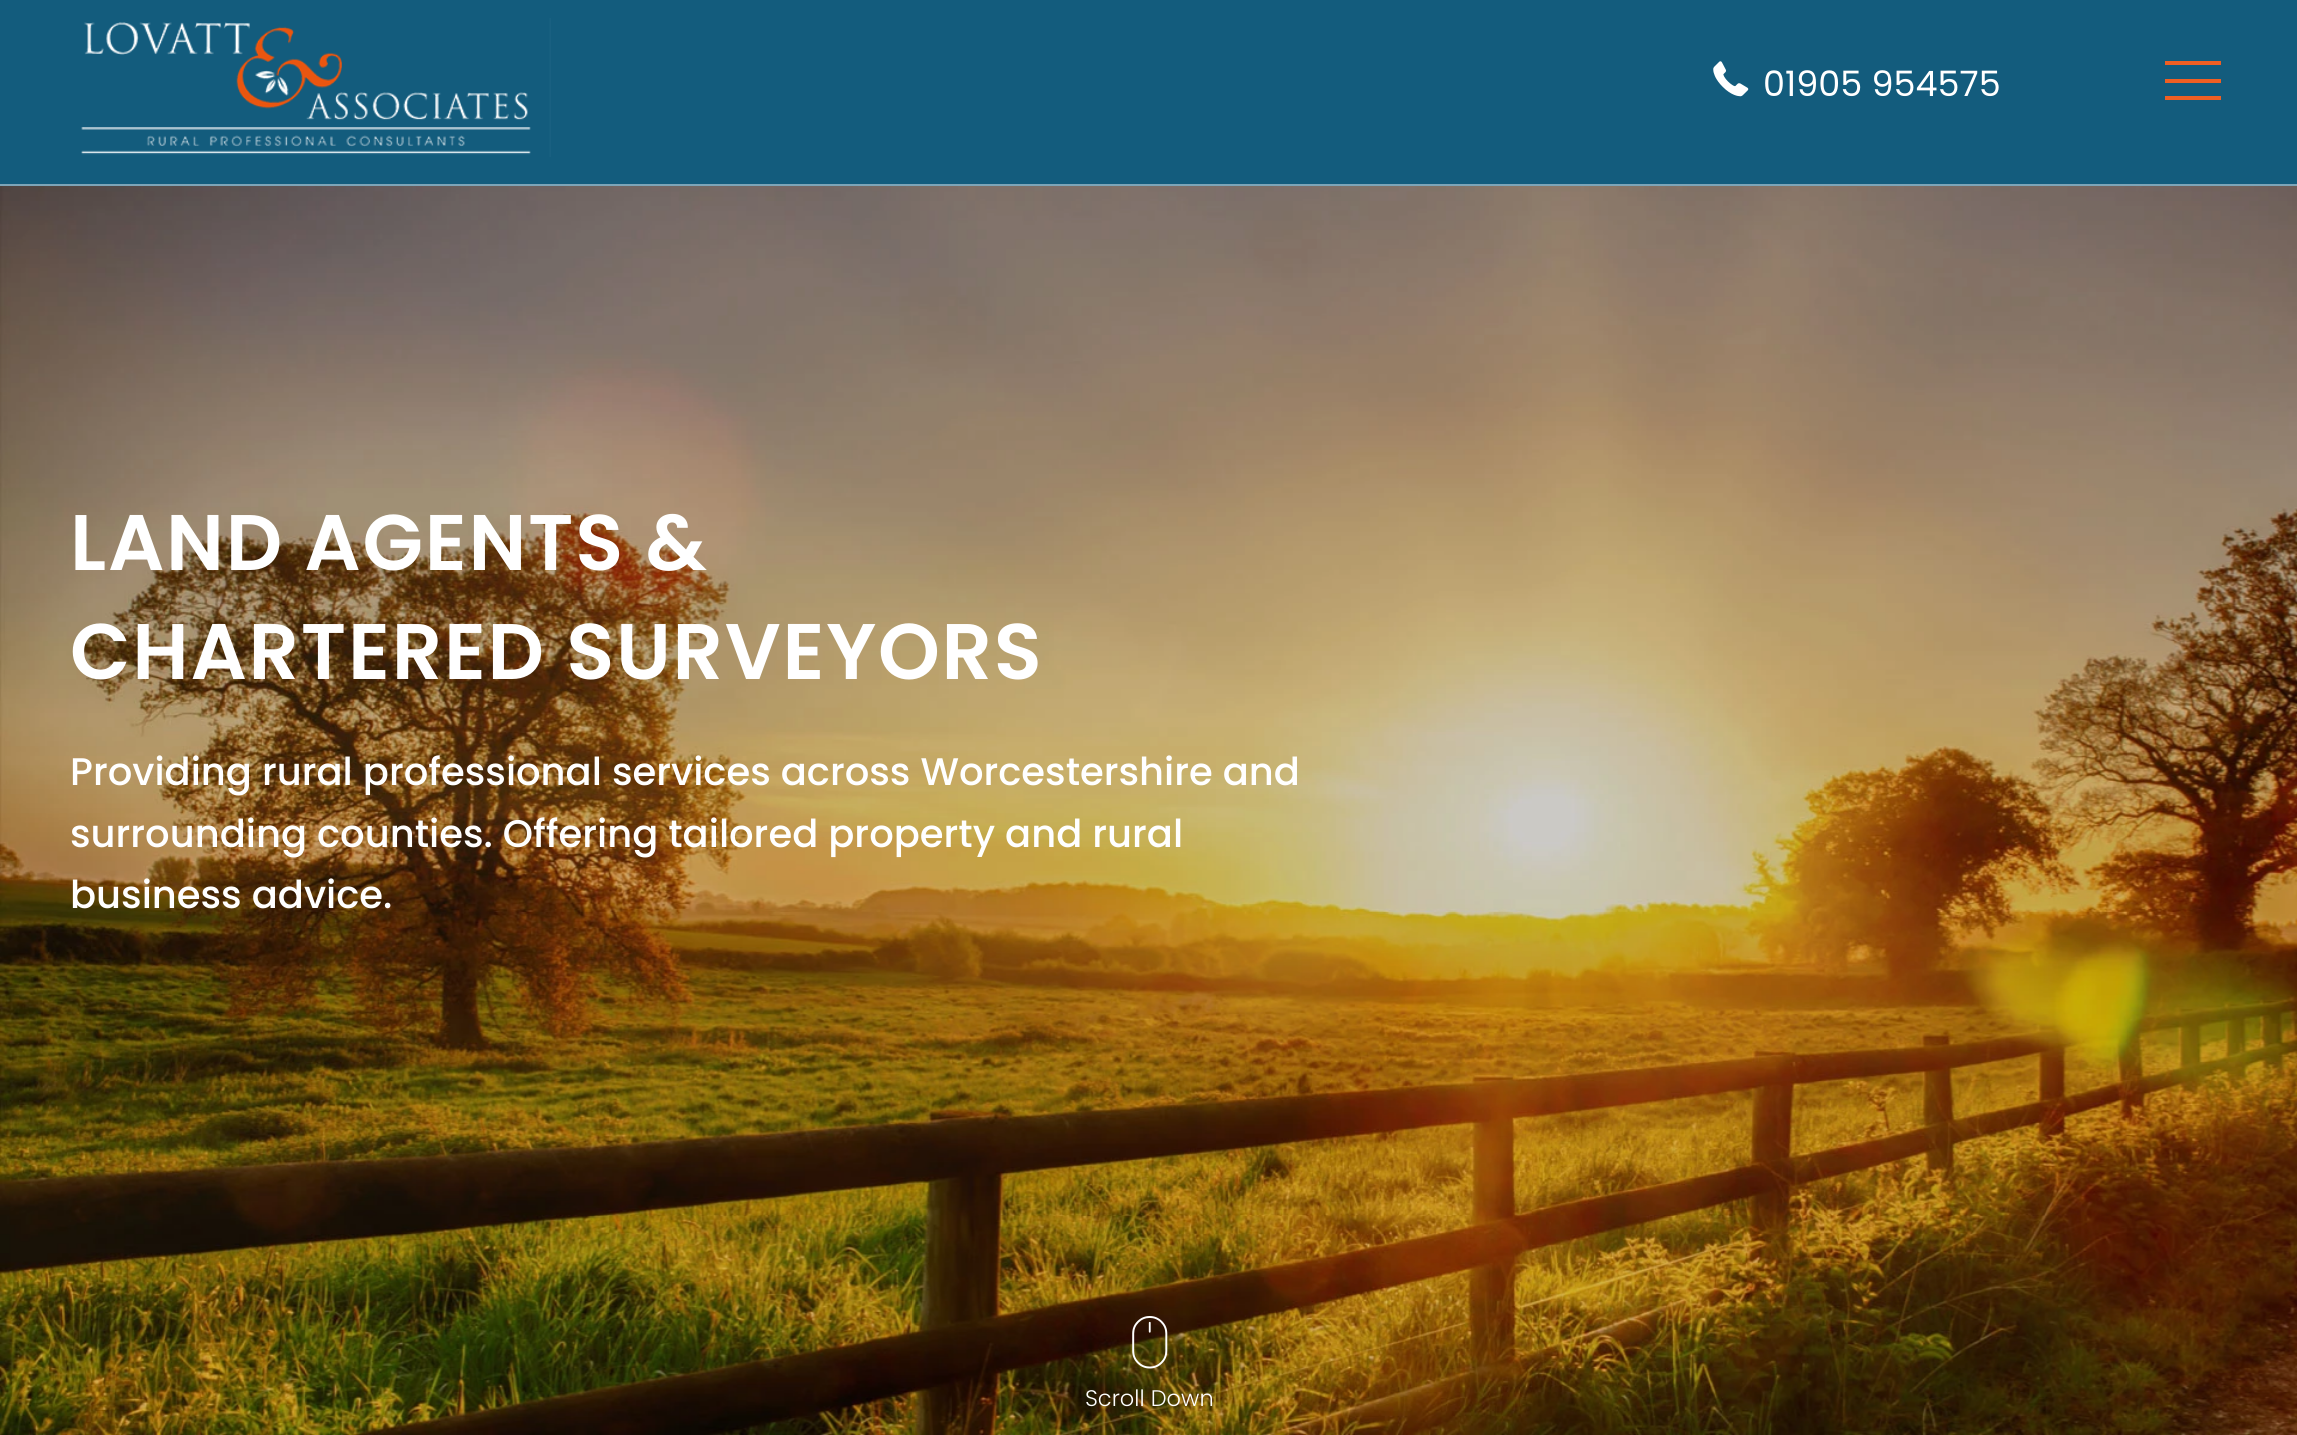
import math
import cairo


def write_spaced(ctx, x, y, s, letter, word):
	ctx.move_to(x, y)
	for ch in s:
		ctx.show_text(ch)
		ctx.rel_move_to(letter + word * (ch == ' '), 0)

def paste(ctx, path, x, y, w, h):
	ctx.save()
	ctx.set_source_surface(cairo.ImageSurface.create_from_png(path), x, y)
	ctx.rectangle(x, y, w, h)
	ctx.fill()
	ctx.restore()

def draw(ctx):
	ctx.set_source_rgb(1, 1, 1)
	ctx.paint()
	ctx.set_source_rgb(0.075, 0.361, 0.49)
	ctx.rectangle(0, 0, 2297, 184)
	ctx.fill()
	ctx.set_source_rgb(0.49, 0.647, 0.722)
	ctx.rectangle(0, 184, 2297, 2)
	ctx.fill()
	paste(ctx, 'media/1.png', 81, 18, 470, 139)
	paste(ctx, 'media/2.png', 1713, 61, 36, 36)
	ctx.select_font_face('Poppins')
	ctx.set_font_size(35)
	ctx.set_source_rgb(1, 1, 1)
	ctx.move_to(1763, 96)
	ctx.show_text('01905 954575')
	ctx.set_source_rgb(0.937, 0.373, 0.137)
	ctx.rectangle(2165, 61, 56, 4)
	ctx.rectangle(2165, 79, 56, 4)
	ctx.rectangle(2165, 96, 56, 4)
	ctx.fill()
	paste(ctx, 'media/3.png', 0, 186, 2297, 1249)
	ctx.select_font_face('Poppins SemiBold')
	ctx.set_font_size(78.75)
	ctx.set_source_rgb(1, 1, 1)
	write_spaced(ctx, 70, 570, 'LAND AGENTS &', 1.75, 0)
	write_spaced(ctx, 70, 679, 'CHARTERED SURVEYORS', 1.75, 0)
	ctx.select_font_face('Poppins Medium')
	ctx.set_font_size(38.5)
	for x, y, s in [
		(70, 785, 'Providing rural professional services across Worcestershire and'),
		(70, 847, 'surrounding counties. Offering tailored property and rural'),
		(70, 908, 'business advice.'),
	]:
		ctx.move_to(x, y)
		ctx.show_text(s)
	paste(ctx, 'media/4.png', 1132, 1316, 36, 53)
	ctx.select_font_face('Poppins Light')
	ctx.set_font_size(22.5)
	ctx.move_to(1085, 1406)
	ctx.show_text('Scroll Down')


surface = cairo.ImageSurface(cairo.FORMAT_RGB24, 2297, 1435)
ctx = cairo.Context(surface)
options = cairo.FontOptions()
options.set_hint_metrics(cairo.HINT_METRICS_OFF)
options.set_hint_style(cairo.HINT_STYLE_NONE)
ctx.set_font_options(options)
ctx.set_miter_limit(4)
draw(ctx)
surface.write_to_png('image.png')
